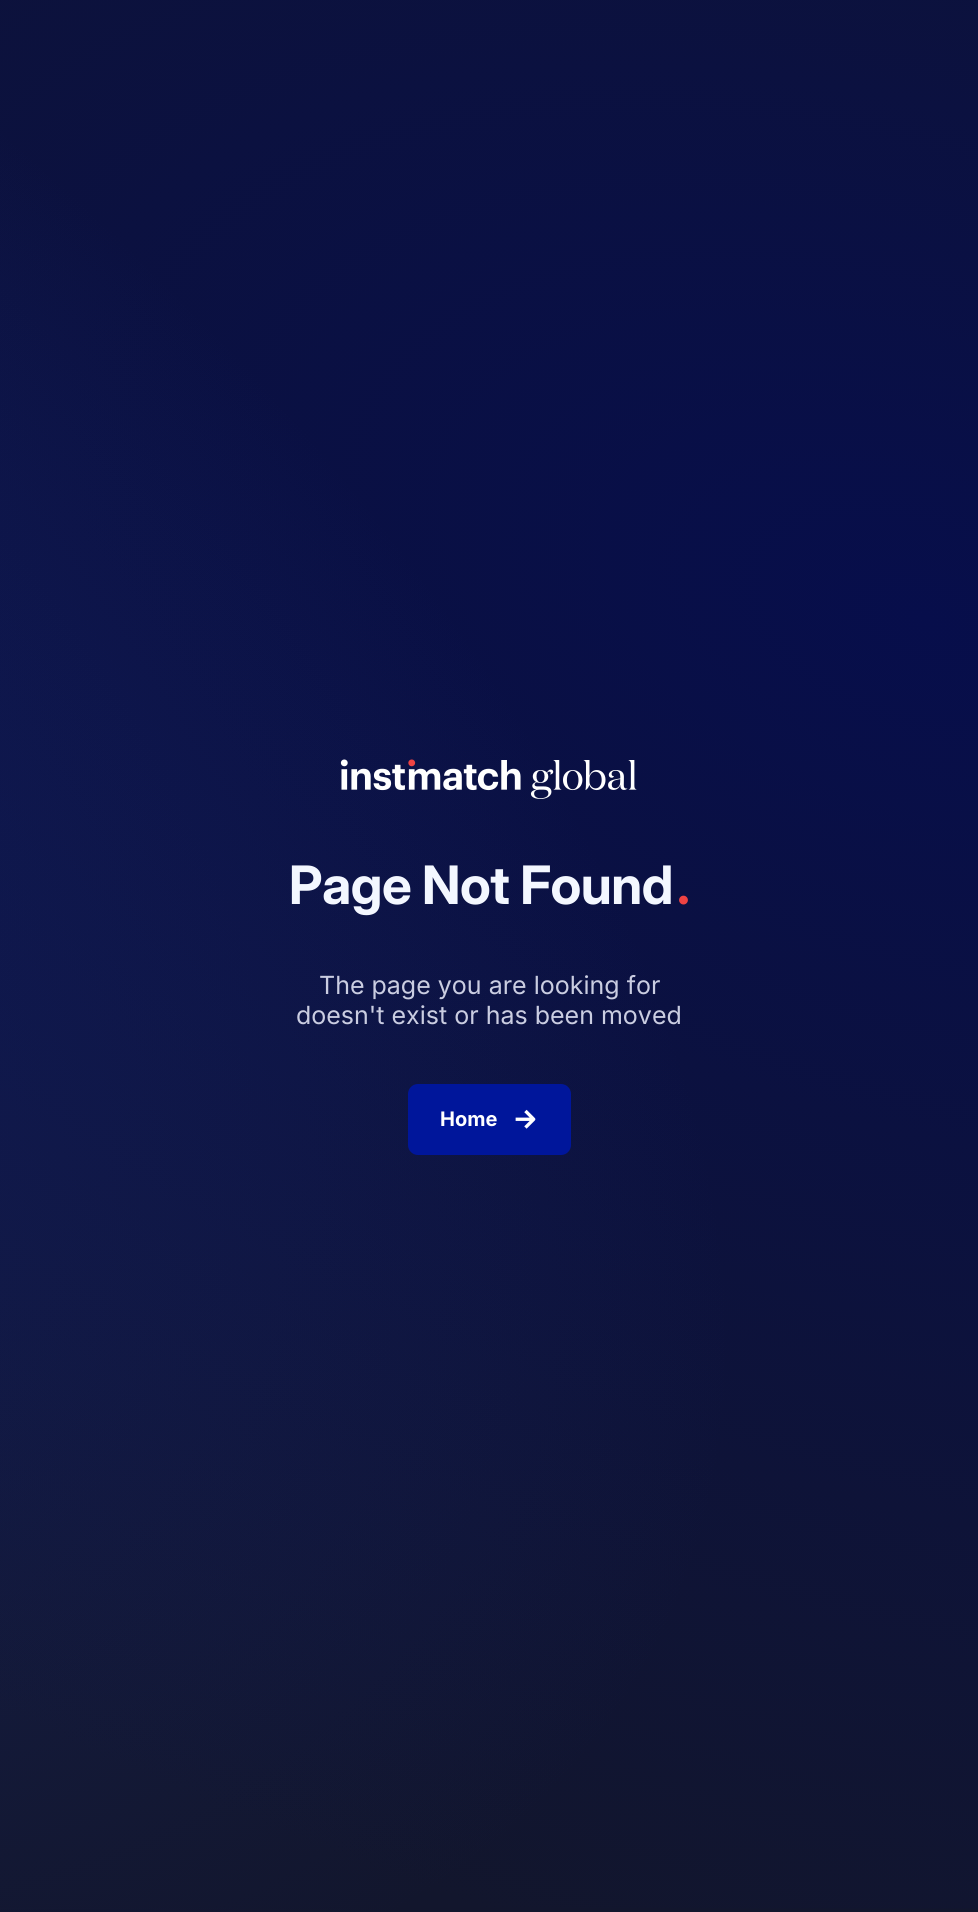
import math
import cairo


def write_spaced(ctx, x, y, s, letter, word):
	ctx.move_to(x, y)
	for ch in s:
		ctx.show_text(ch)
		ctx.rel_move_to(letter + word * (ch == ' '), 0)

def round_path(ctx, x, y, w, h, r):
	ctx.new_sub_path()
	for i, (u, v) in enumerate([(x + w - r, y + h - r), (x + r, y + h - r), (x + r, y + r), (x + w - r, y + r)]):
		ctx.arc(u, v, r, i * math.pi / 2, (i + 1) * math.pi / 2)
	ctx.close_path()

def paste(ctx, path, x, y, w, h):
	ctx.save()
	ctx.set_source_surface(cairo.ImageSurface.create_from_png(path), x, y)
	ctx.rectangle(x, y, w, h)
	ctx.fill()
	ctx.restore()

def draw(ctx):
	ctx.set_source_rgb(0.071, 0.086, 0.176)
	ctx.paint()
	paste(ctx, 'media/1.png', 0, 0, 978, 1912)
	paste(ctx, 'media/2.png', 340, 759, 297, 40)
	ctx.select_font_face('Inter Display', cairo.FONT_SLANT_NORMAL, cairo.FONT_WEIGHT_BOLD)
	ctx.set_font_size(53)
	ctx.set_source_rgb(0.953, 0.965, 1)
	write_spaced(ctx, 289, 904, 'Page Not Found', -0.5, 0)
	ctx.set_source_rgb(0.937, 0.263, 0.263)
	write_spaced(ctx, 677, 904, '.', -0.5, 0)
	ctx.select_font_face('Inter')
	ctx.set_font_size(25)
	ctx.set_source_rgb(0.792, 0.804, 0.882)
	ctx.move_to(319, 994)
	ctx.show_text('The page you are looking for')
	ctx.move_to(296, 1024)
	ctx.show_text('doesn\'t exist or has been moved')
	ctx.set_source_rgb(0, 0.086, 0.608)
	round_path(ctx, 409.5, 1085.5, 160, 68, 8.5)
	ctx.fill_preserve()
	ctx.set_line_width(3)
	ctx.stroke()
	ctx.select_font_face('Inter', cairo.FONT_SLANT_NORMAL, cairo.FONT_WEIGHT_BOLD)
	ctx.set_font_size(20)
	ctx.set_source_rgb(1, 1, 1)
	ctx.move_to(440, 1126)
	ctx.show_text('Home')
	paste(ctx, 'media/3.png', 515, 1109, 21, 20)


surface = cairo.ImageSurface(cairo.FORMAT_RGB24, 978, 1912)
ctx = cairo.Context(surface)
options = cairo.FontOptions()
options.set_hint_metrics(cairo.HINT_METRICS_OFF)
options.set_hint_style(cairo.HINT_STYLE_NONE)
ctx.set_font_options(options)
ctx.set_miter_limit(4)
draw(ctx)
surface.write_to_png('image.png')
